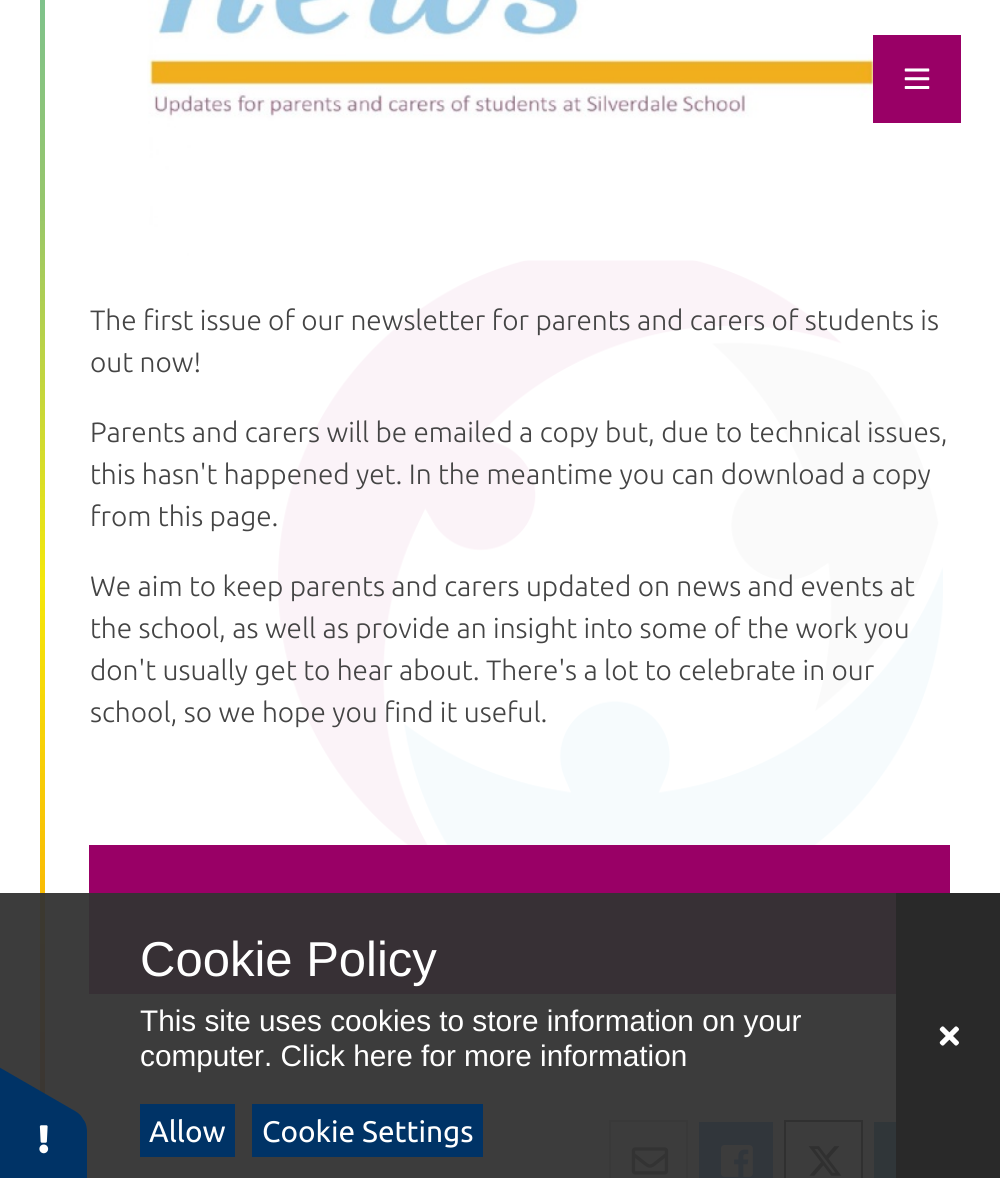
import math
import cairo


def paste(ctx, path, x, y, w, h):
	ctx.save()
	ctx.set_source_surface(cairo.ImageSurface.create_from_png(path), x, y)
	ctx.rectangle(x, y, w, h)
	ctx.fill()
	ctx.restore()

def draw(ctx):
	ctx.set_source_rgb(1, 1, 1)
	ctx.paint()
	paste(ctx, 'media/2.png', 278, 260, 665, 585)
	paste(ctx, 'media/3.png', 147, 0, 730, 261)
	ctx.set_source_rgb(0.6, 0, 0.4)
	ctx.rectangle(873, 35, 88, 88)
	ctx.fill()
	paste(ctx, 'media/1.png', 904, 68, 26, 21)
	gradient = cairo.LinearGradient(43, -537, 43, 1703)
	gradient.add_color_stop_rgba(0, 0.169, 0.729, 0.847, 1)
	gradient.add_color_stop_rgba(0.15, 0.408, 0.749, 0.667, 1)
	gradient.add_color_stop_rgba(0.33, 0.588, 0.776, 0.424, 1)
	gradient.add_color_stop_rgba(0.5, 0.957, 0.906, 0.043, 1)
	gradient.add_color_stop_rgba(0.66, 0.98, 0.71, 0.012, 1)
	gradient.add_color_stop_rgba(0.82, 0.925, 0.376, 0.369, 1)
	gradient.add_color_stop_rgba(1, 0.902, 0.016, 0.494, 1)
	ctx.set_source(gradient)
	ctx.rectangle(40, 0, 5, 1094)
	ctx.fill()
	ctx.select_font_face('Ubuntu Light')
	ctx.set_font_size(28)
	ctx.set_source_rgb(0.267, 0.267, 0.267)
	for x, y, s in [
		(90, 330, 'The first issue of our newsletter for parents and carers of students is'),
		(90, 372, 'out now!'),
		(90, 442, 'Parents and carers will be emailed a copy but, due to technical issues,'),
		(90, 484, 'this hasn\'t happened yet. In the meantime you can download a copy'),
		(90, 526, 'from this page.'),
		(90, 596, 'We aim to keep parents and carers updated on news and events at'),
		(90, 638, 'the school, as well as provide an insight into some of the work you'),
		(90, 680, 'don\'t usually get to hear about. There\'s a lot to celebrate in our'),
		(90, 722, 'school, so we hope you find it useful.'),
	]:
		ctx.move_to(x, y)
		ctx.show_text(s)
	ctx.set_source_rgb(0.6, 0, 0.4)
	ctx.rectangle(89, 845, 861, 149)
	ctx.fill()
	ctx.rectangle(610, 1121, 77, 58)
	ctx.set_source_rgb(0.78, 0.78, 0.78)
	ctx.stroke()
	paste(ctx, 'media/4.png', 631, 1147, 38, 28)
	ctx.set_source_rgb(0.094, 0.467, 0.949)
	ctx.rectangle(699, 1122, 74, 56)
	ctx.fill()
	paste(ctx, 'media/5.png', 721, 1145, 32, 32)
	ctx.rectangle(785, 1121, 77, 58)
	ctx.set_source_rgb(0, 0, 0)
	ctx.stroke()
	paste(ctx, 'media/6.png', 808, 1146, 34, 30)
	ctx.set_source_rgb(0, 0.482, 0.71)
	ctx.rectangle(874, 1122, 22, 56)
	ctx.fill()
	ctx.set_source_rgba(0.2, 0.2, 0.2, 0.95)
	ctx.rectangle(0, 893, 896, 285)
	ctx.fill()
	ctx.set_source_rgb(0, 0.2, 0.4)
	ctx.new_path()
	ctx.move_to(87, 1132)
	ctx.line_to(87, 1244)
	ctx.curve_to(87, 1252, 84, 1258, 80, 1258)
	ctx.line_to(-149, 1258)
	ctx.curve_to(-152, 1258, -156, 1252, -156, 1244)
	ctx.line_to(-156, 1132)
	ctx.curve_to(-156, 1124, -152, 1118, -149, 1118)
	ctx.line_to(80, 1118)
	ctx.curve_to(84, 1118, 87, 1124, 87, 1132)
	ctx.close_path()
	ctx.fill()
	ctx.new_path()
	ctx.move_to(-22, 1055)
	ctx.line_to(75, 1111)
	ctx.curve_to(82, 1115, 85, 1121, 83, 1124)
	ctx.line_to(-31, 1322)
	ctx.curve_to(-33, 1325, -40, 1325, -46, 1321)
	ctx.line_to(-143, 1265)
	ctx.curve_to(-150, 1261, -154, 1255, -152, 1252)
	ctx.line_to(-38, 1054)
	ctx.curve_to(-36, 1051, -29, 1051, -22, 1055)
	ctx.close_path()
	ctx.fill()
	paste(ctx, 'media/7.png', 39, 1125, 10, 29)
	ctx.select_font_face('Liberation Sans')
	ctx.set_font_size(49)
	ctx.set_source_rgb(1, 1, 1)
	ctx.move_to(140, 976)
	ctx.show_text('Cookie Policy')
	ctx.set_font_size(29.75)
	ctx.move_to(140, 1031)
	ctx.show_text('This site uses cookies to store information on your')
	ctx.move_to(140, 1066)
	ctx.show_text('computer. Click here for more information')
	ctx.set_source_rgb(0, 0.2, 0.4)
	ctx.rectangle(140, 1104, 95, 53)
	ctx.fill()
	ctx.select_font_face('Ubuntu')
	ctx.set_source_rgb(1, 1, 1)
	ctx.move_to(149, 1142)
	ctx.show_text('Allow')
	ctx.set_source_rgb(0, 0.2, 0.4)
	ctx.rectangle(252, 1104, 231, 53)
	ctx.fill()
	ctx.set_source_rgb(1, 1, 1)
	ctx.move_to(262, 1142)
	ctx.show_text('Cookie Settings')
	ctx.set_source_rgb(0.161, 0.161, 0.161)
	ctx.rectangle(896, 893, 104, 285)
	ctx.fill()
	paste(ctx, 'media/8.png', 939, 1026, 20, 20)


surface = cairo.ImageSurface(cairo.FORMAT_RGB24, 1000, 1178)
ctx = cairo.Context(surface)
options = cairo.FontOptions()
options.set_hint_metrics(cairo.HINT_METRICS_OFF)
options.set_hint_style(cairo.HINT_STYLE_NONE)
ctx.set_font_options(options)
ctx.set_miter_limit(4)
draw(ctx)
surface.write_to_png('image.png')
